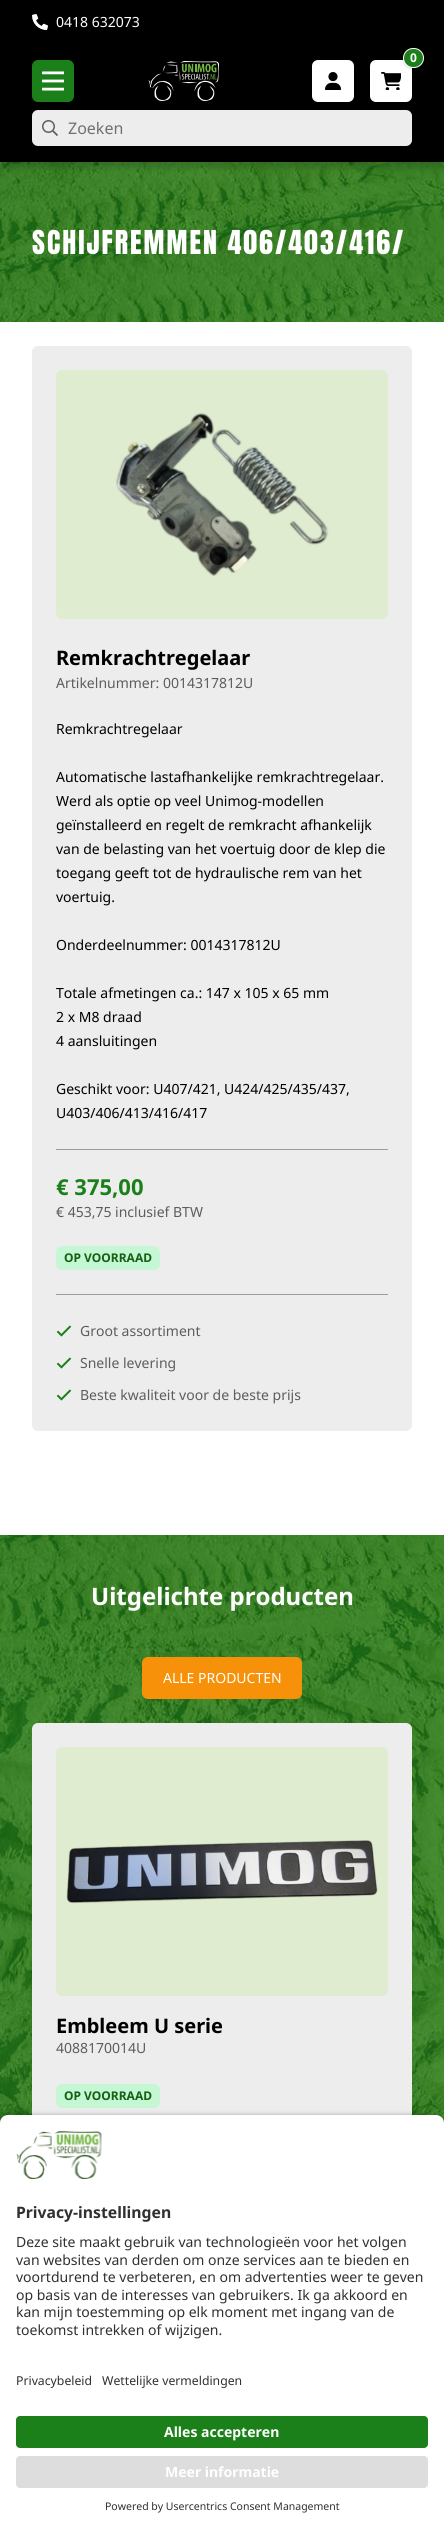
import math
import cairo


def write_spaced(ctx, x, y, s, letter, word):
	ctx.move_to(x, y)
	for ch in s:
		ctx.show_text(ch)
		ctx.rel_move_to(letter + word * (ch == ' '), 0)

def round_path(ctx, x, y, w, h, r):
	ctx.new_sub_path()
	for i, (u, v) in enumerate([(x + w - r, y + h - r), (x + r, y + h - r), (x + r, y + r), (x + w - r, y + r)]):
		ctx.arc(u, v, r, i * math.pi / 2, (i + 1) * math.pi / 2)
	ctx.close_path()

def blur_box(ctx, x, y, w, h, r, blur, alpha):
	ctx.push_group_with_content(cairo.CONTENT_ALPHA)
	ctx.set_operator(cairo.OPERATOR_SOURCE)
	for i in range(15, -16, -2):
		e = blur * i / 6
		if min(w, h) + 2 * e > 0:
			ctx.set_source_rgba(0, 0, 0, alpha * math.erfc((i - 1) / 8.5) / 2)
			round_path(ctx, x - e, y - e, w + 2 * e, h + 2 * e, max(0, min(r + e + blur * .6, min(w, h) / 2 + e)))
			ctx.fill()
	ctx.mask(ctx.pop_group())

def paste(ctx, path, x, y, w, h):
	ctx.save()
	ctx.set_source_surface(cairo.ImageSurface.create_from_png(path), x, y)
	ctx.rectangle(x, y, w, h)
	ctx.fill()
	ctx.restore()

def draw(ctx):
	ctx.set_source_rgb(1, 1, 1)
	ctx.paint()
	paste(ctx, 'media/7.png', 0, 162, 444, 160)
	ctx.set_source_rgb(0, 0, 0)
	blur_box(ctx, 0, 50, 444, 118, 0, 3, 0.15)
	ctx.set_source_rgb(0, 0, 0)
	ctx.rectangle(0, 44, 444, 118)
	ctx.fill()
	ctx.set_source_rgb(1, 1, 1)
	round_path(ctx, 370, 60, 42, 42, 6)
	ctx.fill()
	paste(ctx, 'media/2.png', 381, 72, 20, 18)
	ctx.set_source_rgb(0, 0, 0)
	blur_box(ctx, 403, 49, 21, 20, 10, 1.5, 0.1)
	ctx.set_source_rgb(0, 0, 0)
	ctx.rectangle(0, 0, 444, 44)
	ctx.fill()
	paste(ctx, 'media/1.png', 32, 14, 16, 16)
	ctx.select_font_face('Noto Sans')
	ctx.set_font_size(14)
	ctx.set_source_rgb(1, 1, 1)
	ctx.move_to(56, 27)
	ctx.show_text('0418 632073')
	ctx.set_source_rgb(0, 0, 0)
	blur_box(ctx, 404, 50, 19, 18, 9, 1, 0.1)
	ctx.set_source_rgb(0.106, 0.502, 0.102)
	round_path(ctx, 403.5, 48.5, 20, 19, 9.5)
	ctx.fill_preserve()
	ctx.set_source_rgb(1, 1, 1)
	ctx.set_line_width(1)
	ctx.stroke()
	ctx.select_font_face('Noto Sans', cairo.FONT_SLANT_NORMAL, cairo.FONT_WEIGHT_BOLD)
	ctx.set_font_size(12)
	ctx.move_to(410, 62)
	ctx.show_text('0')
	round_path(ctx, 312, 60, 42, 42, 6)
	ctx.fill()
	paste(ctx, 'media/3.png', 325, 72, 16, 18)
	ctx.set_source_rgb(0.106, 0.502, 0.102)
	round_path(ctx, 32, 60, 42, 42, 6)
	ctx.fill()
	paste(ctx, 'media/4.png', 42, 71, 22, 20)
	paste(ctx, 'media/5.png', 148, 61, 71, 40)
	ctx.set_source_rgb(0.929, 0.929, 0.929)
	round_path(ctx, 32, 110, 380, 36, 6)
	ctx.fill()
	paste(ctx, 'media/6.png', 42, 120, 16, 16)
	ctx.select_font_face('Noto Sans')
	ctx.set_font_size(16)
	ctx.set_source_rgb(0.439, 0.439, 0.439)
	ctx.move_to(68, 134)
	ctx.show_text('Zoeken')
	ctx.select_font_face('Anton')
	ctx.set_font_size(28)
	ctx.set_source_rgb(1, 1, 1)
	write_spaced(ctx, 32, 254, 'SCHIJFREMMEN 406/403/416/', 2, 0)
	ctx.set_source_rgb(0.929, 0.929, 0.929)
	round_path(ctx, 32, 346, 380, 1085, 6)
	ctx.fill()
	paste(ctx, 'media/8.png', 56, 370, 332, 249)
	ctx.select_font_face('Noto Sans', cairo.FONT_SLANT_NORMAL, cairo.FONT_WEIGHT_BOLD)
	ctx.set_font_size(20)
	ctx.set_source_rgb(0, 0, 0)
	ctx.move_to(56, 665)
	ctx.show_text('Remkrachtregelaar')
	ctx.select_font_face('Noto Sans')
	ctx.set_font_size(14)
	ctx.set_source_rgb(0.365, 0.365, 0.365)
	ctx.move_to(56, 688)
	ctx.show_text('Artikelnummer: 0014317812U')
	ctx.set_source_rgb(0, 0, 0)
	for x, y, s in [
		(56, 734, 'Remkrachtregelaar'),
		(56, 782, 'Automatische lastafhankelijke remkrachtregelaar.'),
		(56, 806, 'Werd als optie op veel Unimog-modellen'),
		(56, 830, 'geïnstalleerd en regelt de remkracht afhankelijk'),
		(56, 854, 'van de belasting van het voertuig door de klep die'),
		(56, 878, 'toegang geeft tot de hydraulische rem van het'),
		(56, 902, 'voertuig.'),
		(56, 950, 'Onderdeelnummer: 0014317812U'),
		(56, 998, 'Totale afmetingen ca.: 147 x 105 x 65 mm'),
		(56, 1022, '2 x M8 draad'),
		(56, 1046, '4 aansluitingen'),
		(56, 1094, 'Geschikt voor: U407/421, U424/425/435/437,'),
		(56, 1118, 'U403/406/413/416/417'),
	]:
		ctx.move_to(x, y)
		ctx.show_text(s)
	ctx.set_source_rgb(0.608, 0.608, 0.608)
	ctx.rectangle(56, 1149, 332, 1)
	ctx.fill()
	ctx.select_font_face('Noto Sans', cairo.FONT_SLANT_NORMAL, cairo.FONT_WEIGHT_BOLD)
	ctx.set_font_size(22)
	ctx.set_source_rgb(0.106, 0.502, 0.102)
	ctx.move_to(56, 1195)
	ctx.show_text('€ 375,00')
	ctx.select_font_face('Noto Sans')
	ctx.set_font_size(14)
	ctx.set_source_rgb(0.365, 0.365, 0.365)
	ctx.move_to(56, 1217)
	ctx.show_text('€ 453,75 inclusief BTW')
	ctx.set_source_rgb(0.776, 0.965, 0.835)
	round_path(ctx, 56, 1246, 104, 24, 6)
	ctx.fill()
	ctx.select_font_face('Noto Sans', cairo.FONT_SLANT_NORMAL, cairo.FONT_WEIGHT_BOLD)
	ctx.set_font_size(12)
	ctx.set_source_rgb(0.082, 0.38, 0.078)
	ctx.move_to(64, 1262)
	ctx.show_text('OP VOORRAAD')
	ctx.set_source_rgb(0.608, 0.608, 0.608)
	ctx.rectangle(56, 1294, 332, 1)
	ctx.fill()
	paste(ctx, 'media/9.png', 56, 1325, 16, 12)
	ctx.select_font_face('Noto Sans')
	ctx.set_font_size(14)
	ctx.set_source_rgb(0.365, 0.365, 0.365)
	ctx.move_to(80, 1336)
	ctx.show_text('Groot assortiment')
	paste(ctx, 'media/9.png', 56, 1357, 16, 12)
	ctx.move_to(80, 1368)
	ctx.show_text('Snelle levering')
	paste(ctx, 'media/9.png', 56, 1389, 16, 12)
	ctx.move_to(80, 1400)
	ctx.show_text('Beste kwaliteit voor de beste prijs')
	paste(ctx, 'media/10.png', 0, 1535, 444, 588)
	ctx.select_font_face('Noto Sans', cairo.FONT_SLANT_NORMAL, cairo.FONT_WEIGHT_BOLD)
	ctx.set_font_size(24)
	ctx.set_source_rgb(1, 1, 1)
	ctx.move_to(91, 1605)
	ctx.show_text('Uitgelichte producten')
	ctx.set_source_rgb(0.961, 0.569, 0.039)
	round_path(ctx, 142.5, 1657.5, 159, 41, 5.5)
	ctx.fill_preserve()
	ctx.stroke()
	ctx.select_font_face('Noto Sans')
	ctx.set_font_size(14)
	ctx.set_source_rgb(1, 1, 1)
	ctx.move_to(163, 1683)
	ctx.show_text('ALLE PRODUCTEN')
	ctx.set_source_rgb(0.929, 0.929, 0.929)
	round_path(ctx, 32, 1723, 380, 516, 6)
	ctx.fill()
	paste(ctx, 'media/11.png', 56, 1747, 332, 249)
	ctx.select_font_face('Noto Sans', cairo.FONT_SLANT_NORMAL, cairo.FONT_WEIGHT_BOLD)
	ctx.set_font_size(20)
	ctx.set_source_rgb(0, 0, 0)
	ctx.move_to(56, 2033)
	ctx.show_text('Embleem U serie')
	ctx.select_font_face('Noto Sans')
	ctx.set_font_size(14)
	ctx.set_source_rgb(0.365, 0.365, 0.365)
	ctx.move_to(56, 2053)
	ctx.show_text('4088170014U')
	ctx.set_source_rgb(0.776, 0.965, 0.835)
	round_path(ctx, 56, 2084, 104, 24, 6)
	ctx.fill()
	ctx.select_font_face('Noto Sans', cairo.FONT_SLANT_NORMAL, cairo.FONT_WEIGHT_BOLD)
	ctx.set_font_size(12)
	ctx.set_source_rgb(0.082, 0.38, 0.078)
	ctx.move_to(64, 2100)
	ctx.show_text('OP VOORRAAD')
	ctx.set_source_rgb(0, 0, 0)
	blur_box(ctx, 0, 2118, 444, 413, 8, 3.5, 0.8)
	ctx.set_source_rgb(1, 1, 1)
	ctx.new_path()
	ctx.move_to(8, 2115)
	ctx.line_to(436, 2115)
	ctx.curve_to(440.5, 2115, 444, 2118.5, 444, 2123)
	ctx.line_to(444, 2358)
	ctx.line_to(0, 2358)
	ctx.line_to(0, 2123)
	ctx.curve_to(0, 2118.5, 3.5, 2115, 8, 2115)
	ctx.close_path()
	ctx.fill()
	paste(ctx, 'media/12.png', 16, 2131, 86, 48)
	ctx.set_font_size(15.75)
	ctx.set_source_rgb(0.188, 0.188, 0.188)
	ctx.move_to(16, 2218)
	ctx.show_text('Privacy-instellingen')
	ctx.select_font_face('Noto Sans')
	ctx.set_font_size(14)
	for x, y, s in [
		(16, 2247, 'Deze site maakt gebruik van technologieën voor het volgen'),
		(16, 2265, 'van websites van derden om onze services aan te bieden en'),
		(16, 2282, 'voortdurend te verbeteren, en om advertenties weer te geven'),
		(16, 2300, 'op basis van de interesses van gebruikers. Ik ga akkoord en'),
		(16, 2317, 'kan mijn toestemming op elk moment met ingang van de'),
		(16, 2335, 'toekomst intrekken of wijzigen.'),
	]:
		ctx.move_to(x, y)
		ctx.show_text(s)
	ctx.set_source_rgb(1, 1, 1)
	ctx.rectangle(0, 2358, 444, 170)
	ctx.fill()
	ctx.set_font_size(12.25)
	ctx.set_source_rgb(0.188, 0.188, 0.188)
	ctx.move_to(16, 2385)
	ctx.show_text('Privacybeleid')
	ctx.move_to(102, 2385)
	ctx.show_text('Wettelijke vermeldingen')
	ctx.set_source_rgb(0.106, 0.502, 0.102)
	round_path(ctx, 16, 2416, 412, 32, 4)
	ctx.fill()
	ctx.select_font_face('Noto Sans', cairo.FONT_SLANT_NORMAL, cairo.FONT_WEIGHT_BOLD)
	ctx.set_font_size(14)
	ctx.set_source_rgb(1, 1, 1)
	ctx.move_to(164, 2437)
	ctx.show_text('Alles accepteren')
	ctx.set_source_rgb(0.867, 0.867, 0.867)
	round_path(ctx, 16, 2456, 412, 32, 4)
	ctx.fill()
	ctx.set_source_rgb(1, 1, 1)
	ctx.move_to(165, 2477)
	ctx.show_text('Meer informatie')
	ctx.select_font_face('Noto Sans')
	ctx.set_font_size(10.5)
	ctx.set_source_rgb(0.188, 0.188, 0.188)
	ctx.move_to(105, 2510)
	ctx.show_text('Powered by Usercentrics Consent Management')


surface = cairo.ImageSurface(cairo.FORMAT_RGB24, 444, 2528)
ctx = cairo.Context(surface)
options = cairo.FontOptions()
options.set_hint_metrics(cairo.HINT_METRICS_OFF)
options.set_hint_style(cairo.HINT_STYLE_NONE)
ctx.set_font_options(options)
ctx.set_miter_limit(4)
draw(ctx)
surface.write_to_png('image.png')
